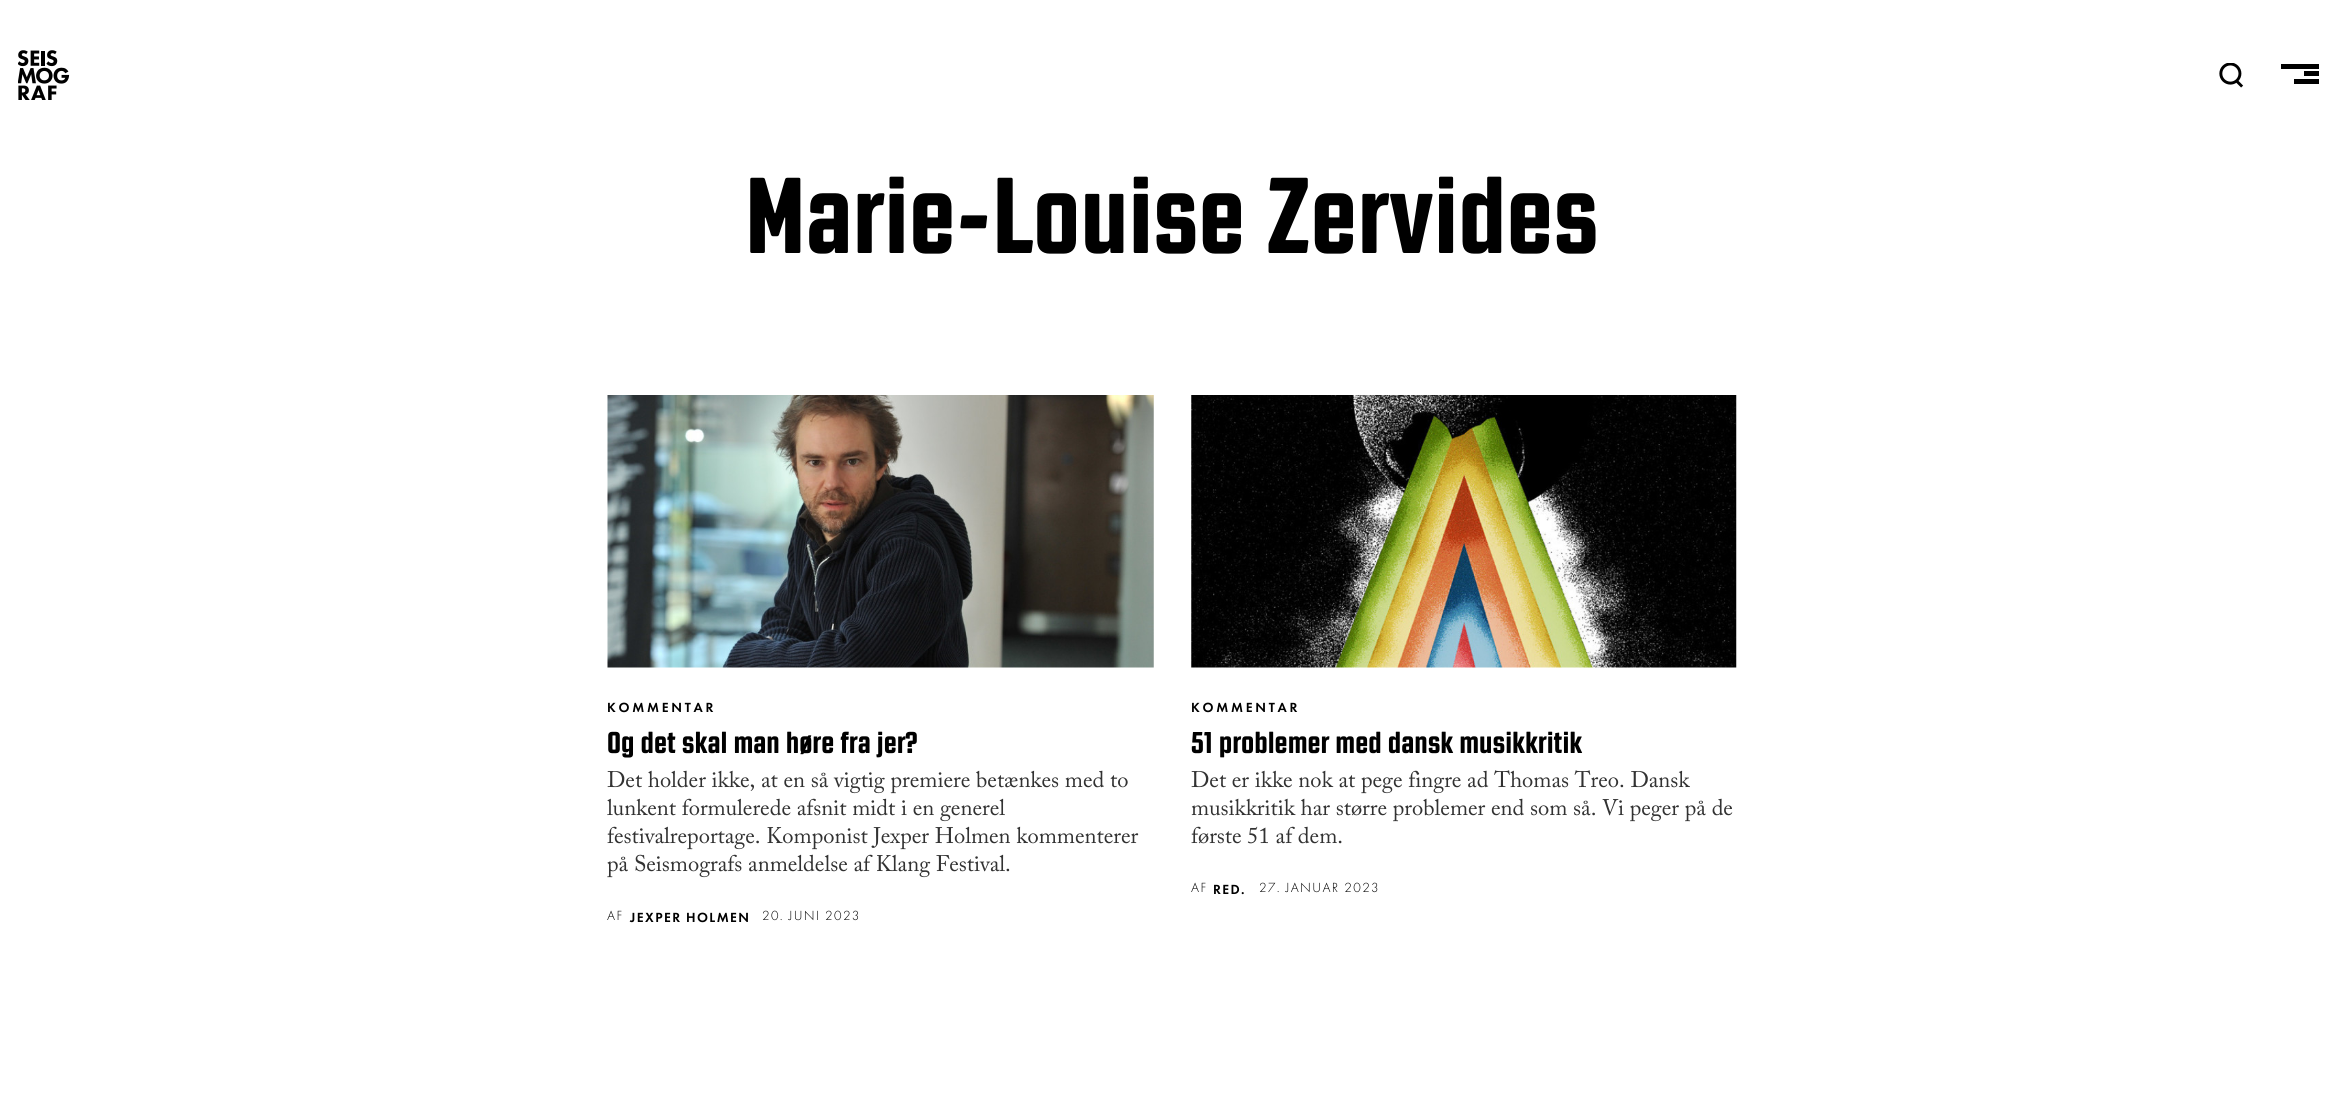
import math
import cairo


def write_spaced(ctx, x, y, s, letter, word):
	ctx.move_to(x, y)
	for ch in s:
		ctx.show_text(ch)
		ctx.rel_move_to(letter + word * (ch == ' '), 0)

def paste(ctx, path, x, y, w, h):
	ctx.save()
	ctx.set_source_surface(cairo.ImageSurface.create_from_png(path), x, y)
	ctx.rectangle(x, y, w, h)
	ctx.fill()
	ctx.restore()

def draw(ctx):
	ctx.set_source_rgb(1, 1, 1)
	ctx.paint()
	paste(ctx, 'media/1.png', 18, 50, 52, 50)
	paste(ctx, 'media/2.png', 2219, 63, 25, 25)
	ctx.set_source_rgb(0, 0, 0)
	ctx.rectangle(2281, 64, 38, 5)
	ctx.rectangle(2304, 71, 15, 5)
	ctx.rectangle(2294, 79, 25, 5)
	ctx.fill()
	ctx.select_font_face('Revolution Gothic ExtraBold')
	ctx.set_font_size(107.5)
	ctx.move_to(745, 253)
	ctx.show_text('Marie-Louise Zervides')
	paste(ctx, 'media/3.png', 607, 395, 547, 273)
	ctx.select_font_face('Futura PT Medium')
	ctx.set_font_size(13.75)
	write_spaced(ctx, 607, 712, 'KOMMENTAR', 2.75, 0)
	ctx.select_font_face('Revolution Gothic ExtraBold')
	ctx.set_font_size(30)
	ctx.move_to(607, 753)
	ctx.show_text('Og det skal man høre fra jer?')
	ctx.select_font_face('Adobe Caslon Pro')
	ctx.set_font_size(22.5)
	ctx.set_source_rgb(0.196, 0.196, 0.196)
	for x, y, s in [
		(607, 787, 'Det holder ikke, at en så vigtig premiere betænkes med to'),
		(607, 815, 'lunkent formulerede afsnit midt i en generel'),
		(607, 843, 'festivalreportage. Komponist Jexper Holmen kommenterer'),
		(607, 871, 'på Seismografs anmeldelse af Klang Festival.'),
	]:
		ctx.move_to(x, y)
		ctx.show_text(s)
	ctx.select_font_face('Futura PT Light')
	ctx.set_font_size(13.75)
	ctx.set_source_rgb(0, 0, 0)
	write_spaced(ctx, 607, 920, 'AF', 1.4, 0)
	ctx.select_font_face('Futura PT Medium')
	write_spaced(ctx, 630, 922, 'JEXPER HOLMEN', 1.4, 0)
	ctx.select_font_face('Futura PT Light')
	write_spaced(ctx, 762, 920, '20. JUNI 2023', 1.4, 0)
	paste(ctx, 'media/4.png', 1191, 395, 546, 273)
	ctx.select_font_face('Futura PT Medium')
	write_spaced(ctx, 1191, 712, 'KOMMENTAR', 2.75, 0)
	ctx.select_font_face('Revolution Gothic ExtraBold')
	ctx.set_font_size(30)
	ctx.move_to(1191, 753)
	ctx.show_text('51 problemer med dansk musikkritik')
	ctx.select_font_face('Adobe Caslon Pro')
	ctx.set_font_size(22.5)
	ctx.set_source_rgb(0.196, 0.196, 0.196)
	for x, y, s in [
		(1191, 787, 'Det er ikke nok at pege fingre ad Thomas Treo. Dansk'),
		(1191, 815, 'musikkritik har større problemer end som så. Vi peger på de'),
		(1191, 843, 'første 51 af dem.'),
	]:
		ctx.move_to(x, y)
		ctx.show_text(s)
	ctx.select_font_face('Futura PT Light')
	ctx.set_font_size(13.75)
	ctx.set_source_rgb(0, 0, 0)
	write_spaced(ctx, 1191, 892, 'AF', 1.4, 0)
	ctx.select_font_face('Futura PT Medium')
	write_spaced(ctx, 1213, 894, 'RED.', 1.4, 0)
	ctx.select_font_face('Futura PT Light')
	write_spaced(ctx, 1259, 892, '27. JANUAR 2023', 1.4, 0)


surface = cairo.ImageSurface(cairo.FORMAT_RGB24, 2343, 1117)
ctx = cairo.Context(surface)
options = cairo.FontOptions()
options.set_hint_metrics(cairo.HINT_METRICS_OFF)
options.set_hint_style(cairo.HINT_STYLE_NONE)
ctx.set_font_options(options)
ctx.set_miter_limit(4)
draw(ctx)
surface.write_to_png('image.png')
